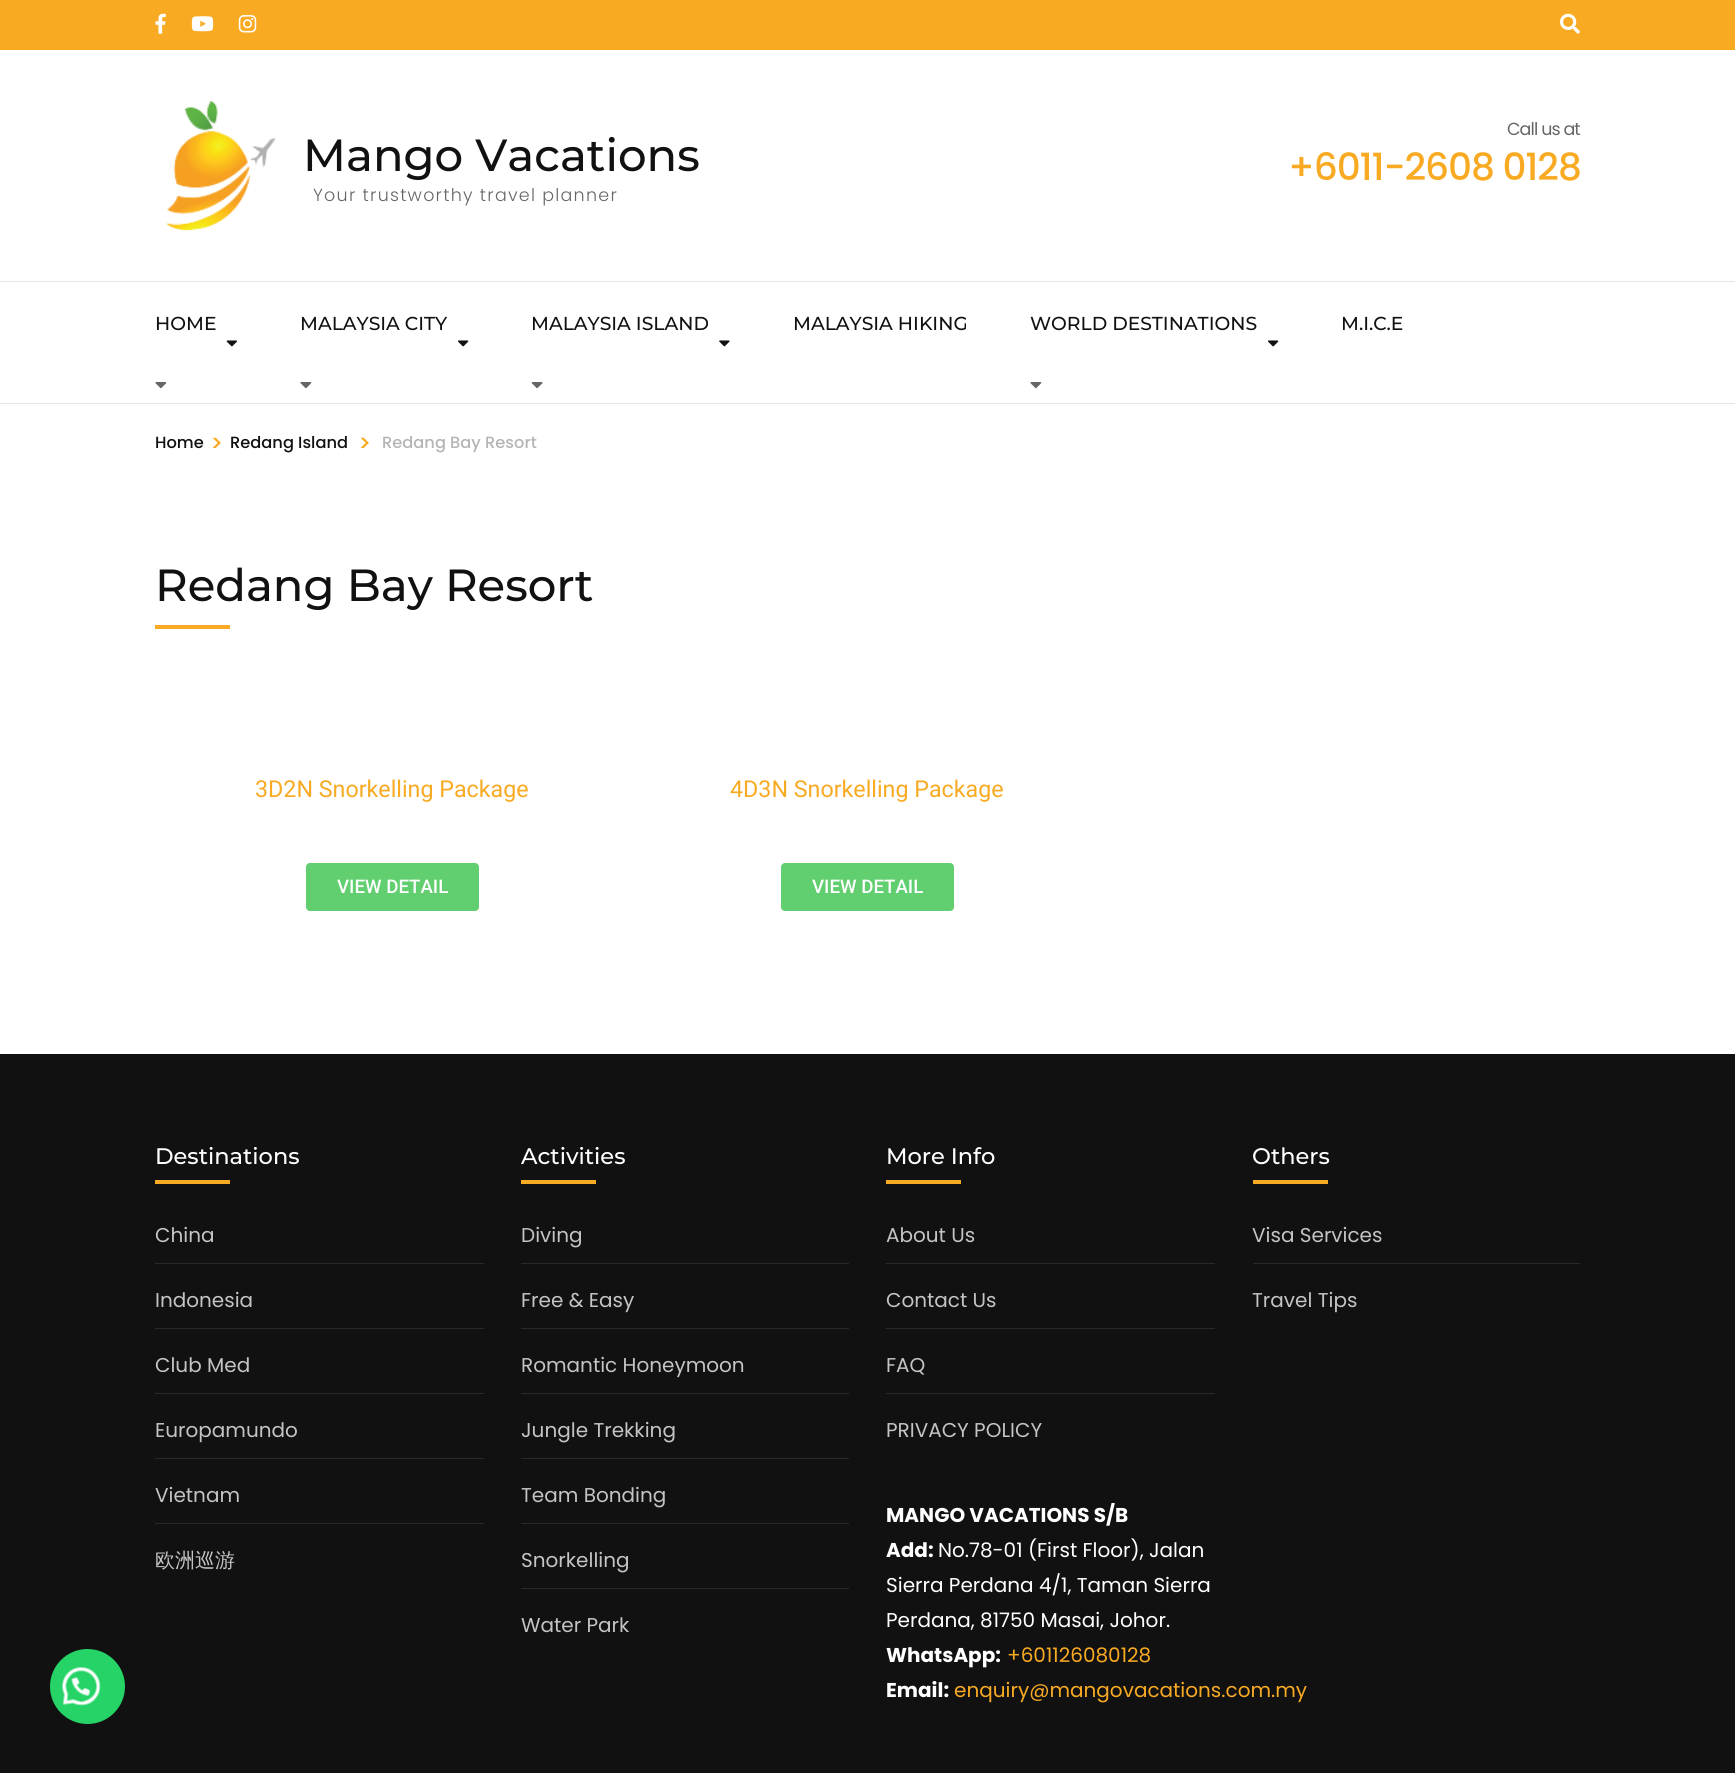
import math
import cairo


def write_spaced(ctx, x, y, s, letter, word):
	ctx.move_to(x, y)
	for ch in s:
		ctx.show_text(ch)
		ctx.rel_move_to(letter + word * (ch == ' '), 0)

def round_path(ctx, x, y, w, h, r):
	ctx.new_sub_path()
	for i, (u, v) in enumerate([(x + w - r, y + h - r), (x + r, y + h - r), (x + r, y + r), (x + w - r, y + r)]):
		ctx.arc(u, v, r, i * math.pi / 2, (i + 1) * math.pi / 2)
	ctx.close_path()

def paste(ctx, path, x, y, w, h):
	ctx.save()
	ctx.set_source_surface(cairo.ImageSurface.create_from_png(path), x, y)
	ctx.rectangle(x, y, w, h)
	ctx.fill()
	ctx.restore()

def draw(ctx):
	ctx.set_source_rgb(1, 1, 1)
	ctx.paint()
	ctx.set_source_rgb(0.067, 0.067, 0.067)
	ctx.rectangle(0, 1054, 1735, 719)
	ctx.fill()
	ctx.set_source_rgb(0.145, 0.827, 0.4)
	ctx.arc(87.5, 1686.5, 37.5, 0, 2 * math.pi)
	ctx.fill()
	paste(ctx, 'media/1.png', 62, 1667, 39, 39)
	ctx.set_source_rgb(0.973, 0.667, 0.137)
	ctx.rectangle(0, 0, 1735, 50)
	ctx.fill()
	paste(ctx, 'media/2.png', 155, 13, 11, 21)
	paste(ctx, 'media/3.png', 191, 16, 23, 16)
	paste(ctx, 'media/4.png', 238, 15, 19, 18)
	paste(ctx, 'media/5.png', 1560, 13, 20, 21)
	paste(ctx, 'media/6.png', 166, 101, 110, 130)
	ctx.select_font_face('Montserrat Medium')
	ctx.set_font_size(45)
	ctx.set_source_rgb(0.067, 0.067, 0.067)
	ctx.move_to(303, 171)
	ctx.show_text('Mango Vacations')
	ctx.select_font_face('Poppins Light')
	ctx.set_font_size(17.5)
	ctx.set_source_rgb(0.4, 0.4, 0.4)
	write_spaced(ctx, 313, 201, 'Your trustworthy travel planner', 1.25, 0)
	ctx.select_font_face('Poppins')
	write_spaced(ctx, 1507, 135, 'Call us at', -0.9, 0)
	ctx.select_font_face('Poppins Medium')
	ctx.set_font_size(37.5)
	ctx.set_source_rgb(0.973, 0.667, 0.137)
	write_spaced(ctx, 1288, 180, '+6011-2608 0128', -1.1, 0)
	ctx.set_source_rgb(0.898, 0.898, 0.898)
	ctx.rectangle(0, 281, 1735, 1)
	ctx.fill()
	ctx.rectangle(0, 403, 1735, 1)
	ctx.fill()
	ctx.select_font_face('Montserrat Medium')
	ctx.set_font_size(18.75)
	ctx.set_source_rgb(0.067, 0.067, 0.067)
	ctx.move_to(155, 330)
	ctx.show_text('HOME')
	paste(ctx, 'media/7.png', 226, 340, 11, 7)
	paste(ctx, 'media/8.png', 155, 382, 12, 7)
	ctx.move_to(300, 330)
	ctx.show_text('MALAYSIA CITY')
	paste(ctx, 'media/9.png', 458, 340, 11, 7)
	paste(ctx, 'media/8.png', 300, 382, 12, 7)
	ctx.move_to(531, 330)
	ctx.show_text('MALAYSIA ISLAND')
	paste(ctx, 'media/10.png', 719, 340, 11, 7)
	paste(ctx, 'media/11.png', 531, 382, 12, 7)
	ctx.move_to(793, 330)
	ctx.show_text('MALAYSIA HIKING')
	ctx.move_to(1030, 330)
	ctx.show_text('WORLD DESTINATIONS')
	paste(ctx, 'media/9.png', 1268, 340, 11, 7)
	paste(ctx, 'media/8.png', 1030, 382, 12, 7)
	ctx.move_to(1341, 330)
	ctx.show_text('M.I.C.E')
	ctx.select_font_face('Poppins Medium')
	ctx.set_font_size(16.25)
	ctx.move_to(155, 448)
	ctx.show_text('Home')
	ctx.set_font_size(22.5)
	ctx.set_source_rgb(0.973, 0.667, 0.137)
	ctx.move_to(210, 451)
	ctx.show_text('>')
	ctx.set_font_size(16.25)
	ctx.set_source_rgb(0.067, 0.067, 0.067)
	ctx.move_to(230, 448)
	ctx.show_text('Redang Island')
	ctx.set_font_size(22.5)
	ctx.set_source_rgb(0.973, 0.667, 0.137)
	ctx.move_to(358, 451)
	ctx.show_text('>')
	ctx.set_font_size(16.25)
	ctx.set_source_rgb(0.71, 0.71, 0.71)
	ctx.move_to(382, 448)
	ctx.show_text('Redang Bay Resort')
	ctx.select_font_face('Montserrat Medium')
	ctx.set_font_size(45)
	ctx.set_source_rgb(0.067, 0.067, 0.067)
	ctx.move_to(155, 601)
	ctx.show_text('Redang Bay Resort')
	ctx.set_source_rgb(0.973, 0.667, 0.137)
	ctx.rectangle(155, 625, 75, 4)
	ctx.fill()
	ctx.select_font_face('Roboto')
	ctx.set_font_size(23.25)
	ctx.move_to(255, 797)
	ctx.show_text('3D2N Snorkelling Package')
	ctx.set_source_rgb(0.38, 0.808, 0.439)
	round_path(ctx, 306, 863, 173, 48, 4)
	ctx.fill()
	ctx.select_font_face('Roboto Medium')
	ctx.set_font_size(18.75)
	ctx.set_source_rgb(1, 1, 1)
	ctx.move_to(337, 893)
	ctx.show_text('VIEW DETAIL')
	ctx.select_font_face('Roboto')
	ctx.set_font_size(23.25)
	ctx.set_source_rgb(0.973, 0.667, 0.137)
	ctx.move_to(730, 797)
	ctx.show_text('4D3N Snorkelling Package')
	ctx.set_source_rgb(0.38, 0.808, 0.439)
	round_path(ctx, 781, 863, 173, 48, 4)
	ctx.fill()
	ctx.select_font_face('Roboto Medium')
	ctx.set_font_size(18.75)
	ctx.set_source_rgb(1, 1, 1)
	ctx.move_to(812, 893)
	ctx.show_text('VIEW DETAIL')
	ctx.select_font_face('Montserrat Medium')
	ctx.set_font_size(22.5)
	ctx.move_to(155, 1164)
	ctx.show_text('Destinations')
	ctx.set_source_rgb(0.973, 0.667, 0.137)
	ctx.rectangle(155, 1180, 75, 4)
	ctx.fill()
	ctx.set_source_rgb(0.161, 0.161, 0.161)
	ctx.rectangle(155, 1263, 329, 1)
	ctx.fill()
	ctx.select_font_face('Poppins')
	ctx.set_font_size(20)
	ctx.set_source_rgb(0.769, 0.769, 0.769)
	ctx.move_to(155, 1242)
	ctx.show_text('China')
	ctx.set_source_rgb(0.161, 0.161, 0.161)
	ctx.rectangle(155, 1328, 329, 1)
	ctx.fill()
	ctx.set_source_rgb(0.769, 0.769, 0.769)
	ctx.move_to(155, 1307)
	ctx.show_text('Indonesia')
	ctx.set_source_rgb(0.161, 0.161, 0.161)
	ctx.rectangle(155, 1393, 329, 1)
	ctx.fill()
	ctx.set_source_rgb(0.769, 0.769, 0.769)
	ctx.move_to(155, 1372)
	ctx.show_text('Club Med')
	ctx.set_source_rgb(0.161, 0.161, 0.161)
	ctx.rectangle(155, 1458, 329, 1)
	ctx.fill()
	ctx.set_source_rgb(0.769, 0.769, 0.769)
	ctx.move_to(155, 1437)
	ctx.show_text('Europamundo')
	ctx.set_source_rgb(0.161, 0.161, 0.161)
	ctx.rectangle(155, 1523, 329, 1)
	ctx.fill()
	ctx.set_source_rgb(0.769, 0.769, 0.769)
	ctx.move_to(155, 1502)
	ctx.show_text('Vietnam')
	ctx.select_font_face('WenQuanYi Zen Hei Medium')
	ctx.move_to(155, 1567)
	ctx.show_text('欧洲巡游')
	ctx.select_font_face('Montserrat Medium')
	ctx.set_font_size(22.5)
	ctx.set_source_rgb(1, 1, 1)
	ctx.move_to(521, 1164)
	ctx.show_text('Activities')
	ctx.set_source_rgb(0.973, 0.667, 0.137)
	ctx.rectangle(521, 1180, 75, 4)
	ctx.fill()
	ctx.set_source_rgb(0.161, 0.161, 0.161)
	ctx.rectangle(521, 1263, 328, 1)
	ctx.fill()
	ctx.select_font_face('Poppins')
	ctx.set_font_size(20)
	ctx.set_source_rgb(0.769, 0.769, 0.769)
	ctx.move_to(521, 1242)
	ctx.show_text('Diving')
	ctx.set_source_rgb(0.161, 0.161, 0.161)
	ctx.rectangle(521, 1328, 328, 1)
	ctx.fill()
	ctx.set_source_rgb(0.769, 0.769, 0.769)
	ctx.move_to(521, 1307)
	ctx.show_text('Free & Easy')
	ctx.set_source_rgb(0.161, 0.161, 0.161)
	ctx.rectangle(521, 1393, 328, 1)
	ctx.fill()
	ctx.set_source_rgb(0.769, 0.769, 0.769)
	ctx.move_to(521, 1372)
	ctx.show_text('Romantic Honeymoon')
	ctx.set_source_rgb(0.161, 0.161, 0.161)
	ctx.rectangle(521, 1458, 328, 1)
	ctx.fill()
	ctx.set_source_rgb(0.769, 0.769, 0.769)
	ctx.move_to(521, 1437)
	ctx.show_text('Jungle Trekking')
	ctx.set_source_rgb(0.161, 0.161, 0.161)
	ctx.rectangle(521, 1523, 328, 1)
	ctx.fill()
	ctx.set_source_rgb(0.769, 0.769, 0.769)
	ctx.move_to(521, 1502)
	ctx.show_text('Team Bonding')
	ctx.set_source_rgb(0.161, 0.161, 0.161)
	ctx.rectangle(521, 1588, 328, 1)
	ctx.fill()
	ctx.set_source_rgb(0.769, 0.769, 0.769)
	ctx.move_to(521, 1567)
	ctx.show_text('Snorkelling')
	ctx.move_to(521, 1632)
	ctx.show_text('Water Park')
	ctx.select_font_face('Montserrat Medium')
	ctx.set_font_size(22.5)
	ctx.set_source_rgb(1, 1, 1)
	ctx.move_to(886, 1164)
	ctx.show_text('More Info')
	ctx.set_source_rgb(0.973, 0.667, 0.137)
	ctx.rectangle(886, 1180, 75, 4)
	ctx.fill()
	ctx.set_source_rgb(0.161, 0.161, 0.161)
	ctx.rectangle(886, 1263, 329, 1)
	ctx.fill()
	ctx.select_font_face('Poppins')
	ctx.set_font_size(20)
	ctx.set_source_rgb(0.769, 0.769, 0.769)
	ctx.move_to(886, 1242)
	ctx.show_text('About Us')
	ctx.set_source_rgb(0.161, 0.161, 0.161)
	ctx.rectangle(886, 1328, 329, 1)
	ctx.fill()
	ctx.set_source_rgb(0.769, 0.769, 0.769)
	ctx.move_to(886, 1307)
	ctx.show_text('Contact Us')
	ctx.set_source_rgb(0.161, 0.161, 0.161)
	ctx.rectangle(886, 1393, 329, 1)
	ctx.fill()
	ctx.set_source_rgb(0.769, 0.769, 0.769)
	ctx.move_to(886, 1372)
	ctx.show_text('FAQ')
	ctx.move_to(886, 1437)
	ctx.show_text('PRIVACY POLICY')
	ctx.select_font_face('Poppins', cairo.FONT_SLANT_NORMAL, cairo.FONT_WEIGHT_BOLD)
	ctx.set_source_rgb(1, 1, 1)
	ctx.move_to(886, 1522)
	ctx.show_text('MANGO VACATIONS S/B')
	ctx.move_to(886, 1557)
	ctx.show_text('Add:')
	ctx.select_font_face('Poppins')
	for x, y, s in [
		(938, 1557, 'No.78-01 (First Floor), Jalan'),
		(886, 1592, 'Sierra Perdana 4/1, Taman Sierra'),
		(886, 1627, 'Perdana, 81750 Masai, Johor.'),
	]:
		ctx.move_to(x, y)
		ctx.show_text(s)
	ctx.select_font_face('Poppins', cairo.FONT_SLANT_NORMAL, cairo.FONT_WEIGHT_BOLD)
	ctx.move_to(886, 1662)
	ctx.show_text('WhatsApp:')
	ctx.select_font_face('Poppins')
	ctx.set_source_rgb(0.973, 0.667, 0.137)
	ctx.move_to(1007, 1662)
	ctx.show_text('+601126080128')
	ctx.select_font_face('Poppins', cairo.FONT_SLANT_NORMAL, cairo.FONT_WEIGHT_BOLD)
	ctx.set_source_rgb(1, 1, 1)
	ctx.move_to(886, 1697)
	ctx.show_text('Email:')
	ctx.select_font_face('Poppins')
	ctx.set_source_rgb(0.973, 0.667, 0.137)
	ctx.move_to(954, 1697)
	ctx.show_text('enquiry@mangovacations.com.my')
	ctx.select_font_face('Montserrat Medium')
	ctx.set_font_size(22.5)
	ctx.set_source_rgb(1, 1, 1)
	ctx.move_to(1252, 1164)
	ctx.show_text('Others')
	ctx.set_source_rgb(0.973, 0.667, 0.137)
	ctx.rectangle(1253, 1180, 75, 4)
	ctx.fill()
	ctx.set_source_rgb(0.161, 0.161, 0.161)
	ctx.rectangle(1253, 1263, 327, 1)
	ctx.fill()
	ctx.select_font_face('Poppins')
	ctx.set_font_size(20)
	ctx.set_source_rgb(0.769, 0.769, 0.769)
	ctx.move_to(1252, 1242)
	ctx.show_text('Visa Services')
	ctx.move_to(1252, 1307)
	ctx.show_text('Travel Tips')


surface = cairo.ImageSurface(cairo.FORMAT_RGB24, 1735, 1773)
ctx = cairo.Context(surface)
options = cairo.FontOptions()
options.set_hint_metrics(cairo.HINT_METRICS_OFF)
options.set_hint_style(cairo.HINT_STYLE_NONE)
ctx.set_font_options(options)
ctx.set_miter_limit(4)
draw(ctx)
surface.write_to_png('image.png')
